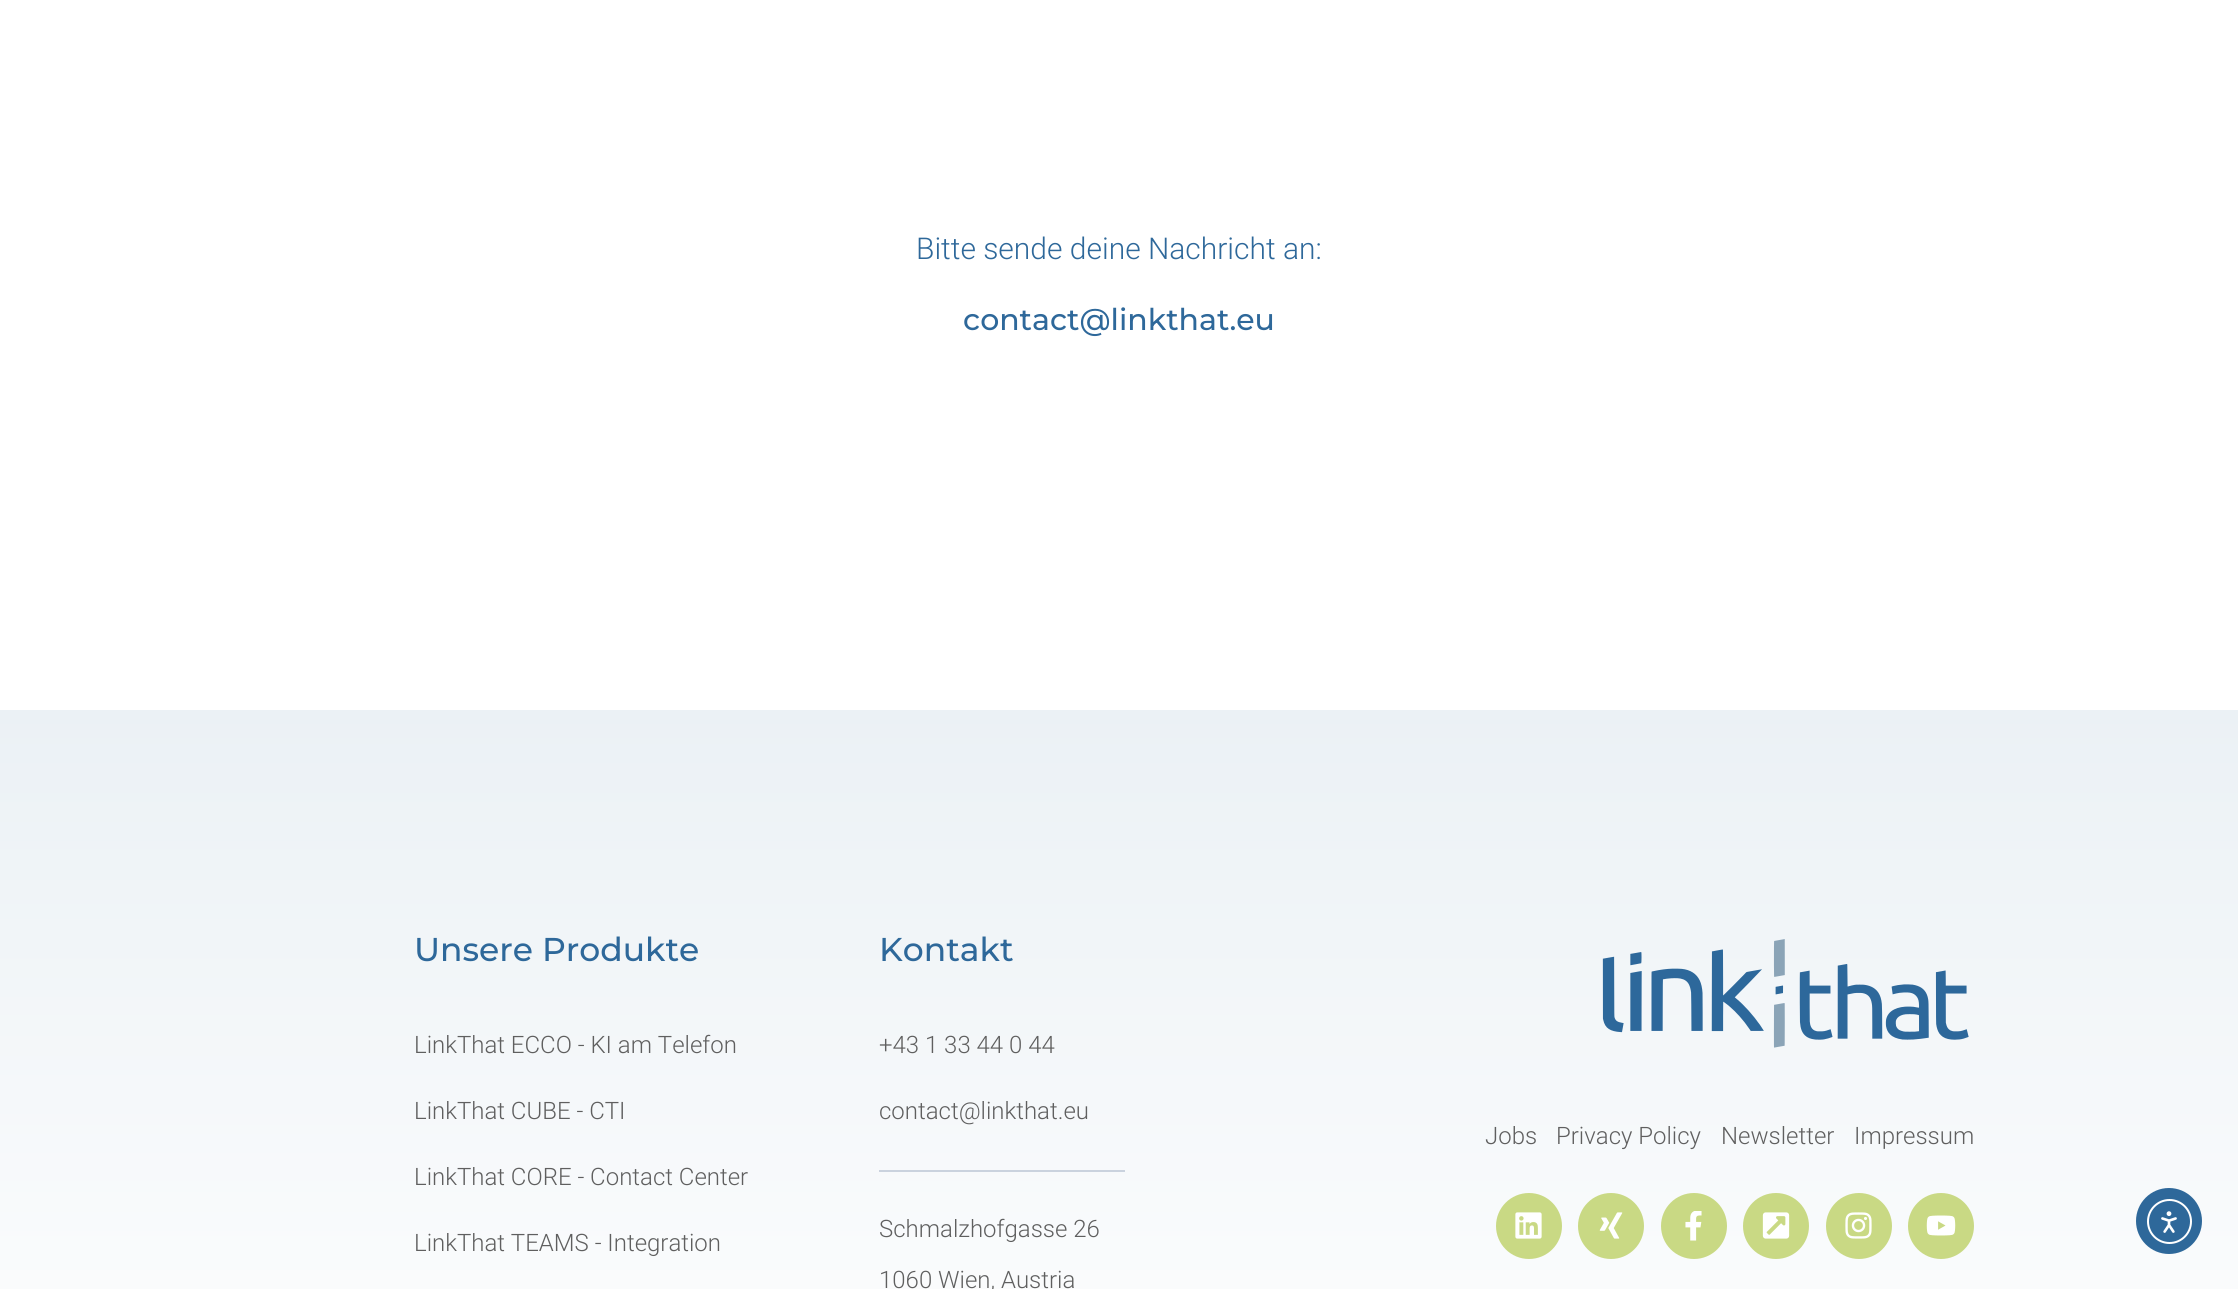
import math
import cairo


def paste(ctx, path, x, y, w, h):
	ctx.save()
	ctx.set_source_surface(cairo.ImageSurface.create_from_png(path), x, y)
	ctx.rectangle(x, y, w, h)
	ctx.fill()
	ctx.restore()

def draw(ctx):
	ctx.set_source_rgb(1, 1, 1)
	ctx.paint()
	ctx.select_font_face('Roboto Light')
	ctx.set_font_size(30)
	ctx.set_source_rgb(0.18, 0.408, 0.604)
	ctx.move_to(916, 259)
	ctx.show_text('Bitte sende deine Nachricht an:')
	ctx.select_font_face('Montserrat Thin')
	ctx.move_to(963, 330)
	ctx.show_text('contact@linkthat.eu')
	gradient = cairo.LinearGradient(1119, 709, 1119, 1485)
	gradient.add_color_stop_rgba(0, 0.922, 0.945, 0.961, 1)
	gradient.add_color_stop_rgba(1, 1, 1, 1, 1)
	ctx.set_source(gradient)
	ctx.rectangle(0, 710, 2238, 579)
	ctx.fill()
	ctx.set_font_size(33)
	ctx.set_source_rgb(0.18, 0.408, 0.604)
	ctx.move_to(414, 961)
	ctx.show_text('Unsere Produkte')
	ctx.select_font_face('Roboto Light')
	ctx.set_font_size(24)
	ctx.set_source_rgb(0.373, 0.373, 0.373)
	for x, y, s in [
		(414, 1053, 'LinkThat ECCO - KI am Telefon'),
		(414, 1119, 'LinkThat CUBE - CTI'),
		(414, 1185, 'LinkThat CORE - Contact Center'),
		(414, 1251, 'LinkThat TEAMS - Integration'),
	]:
		ctx.move_to(x, y)
		ctx.show_text(s)
	ctx.select_font_face('Montserrat Thin')
	ctx.set_font_size(33)
	ctx.set_source_rgb(0.18, 0.408, 0.604)
	ctx.move_to(879, 961)
	ctx.show_text('Kontakt')
	ctx.select_font_face('Roboto Light')
	ctx.set_font_size(24)
	ctx.set_source_rgb(0.373, 0.373, 0.373)
	ctx.move_to(879, 1053)
	ctx.show_text('+43 1 33 44 0 44')
	ctx.move_to(879, 1119)
	ctx.show_text('contact@linkthat.eu')
	ctx.set_source_rgb(0.792, 0.824, 0.871)
	ctx.rectangle(879, 1170, 246, 2)
	ctx.fill()
	ctx.set_source_rgb(0.373, 0.373, 0.373)
	ctx.move_to(879, 1237)
	ctx.show_text('Schmalzhofgasse 26')
	ctx.move_to(879, 1288)
	ctx.show_text('1060 Wien, Austria')
	paste(ctx, 'media/1.png', 1602, 939, 367, 109)
	for x, y, s in [
		(1485, 1144, 'Jobs'),
		(1556, 1144, 'Privacy Policy'),
		(1721, 1144, 'Newsletter'),
		(1854, 1144, 'Impressum'),
	]:
		ctx.move_to(x, y)
		ctx.show_text(s)
	ctx.set_source_rgb(0.788, 0.851, 0.518)
	ctx.new_path()
	ctx.arc(1529, 1226, 33, 0, 2 * math.pi)
	ctx.fill()
	paste(ctx, 'media/2.png', 1515, 1212, 27, 27)
	ctx.arc(1611, 1226, 33, 0, 2 * math.pi)
	ctx.fill()
	paste(ctx, 'media/3.png', 1599, 1212, 24, 27)
	ctx.arc(1694, 1226, 33, 0, 2 * math.pi)
	ctx.fill()
	paste(ctx, 'media/4.png', 1685, 1211, 17, 30)
	ctx.arc(1776, 1226, 33, 0, 2 * math.pi)
	ctx.fill()
	paste(ctx, 'media/5.png', 1762, 1212, 28, 27)
	ctx.arc(1859, 1226, 33, 0, 2 * math.pi)
	ctx.fill()
	paste(ctx, 'media/6.png', 1845, 1212, 27, 27)
	ctx.arc(1941, 1226, 33, 0, 2 * math.pi)
	ctx.fill()
	paste(ctx, 'media/7.png', 1926, 1215, 30, 21)
	ctx.set_source_rgb(0.18, 0.408, 0.604)
	ctx.arc(2169, 1221, 33, 0, 2 * math.pi)
	ctx.fill()
	ctx.arc(2169.5, 1221.5, 21.5, 0, 2 * math.pi)
	ctx.set_source_rgb(1, 1, 1)
	ctx.stroke()
	paste(ctx, 'media/8.png', 2161, 1211, 16, 22)


surface = cairo.ImageSurface(cairo.FORMAT_RGB24, 2238, 1289)
ctx = cairo.Context(surface)
options = cairo.FontOptions()
options.set_hint_metrics(cairo.HINT_METRICS_OFF)
options.set_hint_style(cairo.HINT_STYLE_NONE)
ctx.set_font_options(options)
ctx.set_miter_limit(4)
draw(ctx)
surface.write_to_png('image.png')
